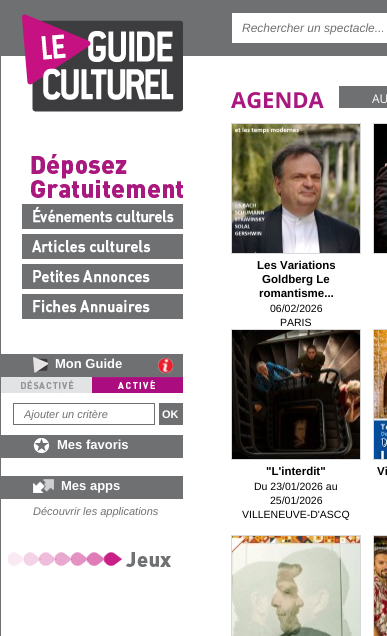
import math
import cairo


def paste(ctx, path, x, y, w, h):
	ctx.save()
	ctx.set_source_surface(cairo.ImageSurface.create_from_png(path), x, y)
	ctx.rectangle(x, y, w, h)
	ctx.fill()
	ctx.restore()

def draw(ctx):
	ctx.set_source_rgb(1, 1, 1)
	ctx.paint()
	ctx.set_source_rgb(0.435, 0.439, 0.447)
	ctx.rectangle(0, 0, 1, 636)
	ctx.fill()
	ctx.rectangle(1, 0, 386, 56)
	ctx.fill()
	paste(ctx, 'media/1.png', 22, 14, 161, 98)
	paste(ctx, 'media/2.png', 31, 154, 152, 44)
	paste(ctx, 'media/3.png', 22, 204, 161, 25)
	paste(ctx, 'media/4.png', 22, 234, 161, 25)
	paste(ctx, 'media/5.png', 22, 264, 161, 25)
	paste(ctx, 'media/6.png', 22, 294, 161, 25)
	ctx.rectangle(1, 354, 182, 23)
	ctx.fill()
	paste(ctx, 'media/7.png', 33, 357, 15, 16)
	ctx.select_font_face('Liberation Sans', cairo.FONT_SLANT_NORMAL, cairo.FONT_WEIGHT_BOLD)
	ctx.set_font_size(13)
	ctx.set_source_rgb(1, 1, 1)
	ctx.move_to(55, 368)
	ctx.show_text('Mon Guide')
	paste(ctx, 'media/8.png', 158, 358, 15, 15)
	paste(ctx, 'media/9.png', 1, 377, 182, 16)
	ctx.rectangle(13.5, 403.5, 141, 21)
	ctx.set_source_rgb(0.435, 0.439, 0.447)
	ctx.set_line_width(1)
	ctx.stroke()
	ctx.save()
	ctx.rectangle(24, 408, 130, 12)
	ctx.clip()
	ctx.select_font_face('Liberation Sans', cairo.FONT_SLANT_ITALIC)
	ctx.set_font_size(11)
	ctx.move_to(24, 418)
	ctx.show_text('Ajouter un critère')
	ctx.restore()
	ctx.rectangle(159, 403, 24, 22)
	ctx.fill()
	ctx.set_font_size(11)
	ctx.set_source_rgb(1, 1, 1)
	ctx.move_to(162, 418)
	ctx.show_text('OK')
	ctx.set_source_rgb(0.435, 0.439, 0.447)
	ctx.rectangle(1, 435, 182, 23)
	ctx.fill()
	paste(ctx, 'media/10.png', 33, 438, 17, 15)
	ctx.set_font_size(13)
	ctx.set_source_rgb(1, 1, 1)
	ctx.move_to(57, 449)
	ctx.show_text('Mes favoris')
	ctx.set_source_rgb(0.435, 0.439, 0.447)
	ctx.rectangle(1, 476, 182, 23)
	ctx.fill()
	paste(ctx, 'media/11.png', 33, 479, 21, 14)
	ctx.set_source_rgb(1, 1, 1)
	ctx.move_to(61, 490)
	ctx.show_text('Mes apps')
	ctx.select_font_face('Liberation Sans', cairo.FONT_SLANT_ITALIC)
	ctx.set_font_size(11)
	ctx.set_source_rgb(0.435, 0.439, 0.447)
	ctx.move_to(33, 515)
	ctx.show_text('Découvrir les applications')
	paste(ctx, 'media/12.png', 8, 552, 163, 15)
	ctx.set_source_rgb(1, 1, 1)
	ctx.rectangle(232, 13, 155, 30)
	ctx.fill()
	ctx.set_font_size(12)
	ctx.set_source_rgb(0.435, 0.439, 0.447)
	ctx.move_to(242, 32)
	ctx.show_text('Rechercher un spectacle...')
	ctx.select_font_face('Open Sans', cairo.FONT_SLANT_NORMAL, cairo.FONT_WEIGHT_BOLD)
	ctx.set_font_size(22)
	ctx.set_source_rgb(0.663, 0.094, 0.494)
	ctx.move_to(231, 108)
	ctx.show_text('AGENDA')
	ctx.set_source_rgb(0.435, 0.439, 0.447)
	ctx.rectangle(339, 86, 48, 22)
	ctx.fill()
	ctx.select_font_face('Open Sans')
	ctx.set_font_size(12)
	ctx.set_source_rgb(1, 1, 1)
	ctx.move_to(372, 103)
	ctx.show_text('AU')
	ctx.rectangle(373.5, 123.5, 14, 130)
	ctx.set_source_rgb(0.847, 0.851, 0.855)
	ctx.stroke()
	paste(ctx, 'media/13.png', 374, 124, 13, 129)
	ctx.rectangle(231.5, 123.5, 129, 130)
	ctx.stroke()
	paste(ctx, 'media/14.png', 232, 124, 128, 129)
	ctx.select_font_face('Liberation Sans', cairo.FONT_SLANT_NORMAL, cairo.FONT_WEIGHT_BOLD)
	ctx.set_font_size(11.5)
	ctx.set_source_rgb(0, 0, 0)
	for x, y, s in [
		(257, 269, 'Les Variations'),
		(262, 283, 'Goldberg Le'),
		(259, 297, 'romantisme...'),
	]:
		ctx.move_to(x, y)
		ctx.show_text(s)
	ctx.select_font_face('Liberation Sans')
	ctx.set_font_size(10.5)
	ctx.move_to(270, 312)
	ctx.show_text('06/02/2026')
	ctx.move_to(280, 326)
	ctx.show_text('PARIS')
	ctx.rectangle(231.5, 329.5, 129, 130)
	ctx.set_source_rgb(0.847, 0.851, 0.855)
	ctx.stroke()
	paste(ctx, 'media/15.png', 232, 330, 128, 129)
	ctx.select_font_face('Liberation Sans', cairo.FONT_SLANT_NORMAL, cairo.FONT_WEIGHT_BOLD)
	ctx.set_font_size(11.5)
	ctx.set_source_rgb(0, 0, 0)
	ctx.move_to(266, 475)
	ctx.show_text('"L\'interdit"')
	ctx.select_font_face('Liberation Sans')
	ctx.set_font_size(10.5)
	for x, y, s in [
		(254, 490, 'Du 23/01/2026 au'),
		(270, 504, '25/01/2026'),
		(242, 518, 'VILLENEUVE-D\'ASCQ'),
	]:
		ctx.move_to(x, y)
		ctx.show_text(s)
	ctx.rectangle(373.5, 329.5, 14, 130)
	ctx.set_source_rgb(0.847, 0.851, 0.855)
	ctx.stroke()
	paste(ctx, 'media/16.png', 374, 330, 13, 129)
	ctx.select_font_face('Liberation Sans', cairo.FONT_SLANT_NORMAL, cairo.FONT_WEIGHT_BOLD)
	ctx.set_font_size(11.5)
	ctx.set_source_rgb(0, 0, 0)
	ctx.move_to(377, 475)
	ctx.show_text('Vi')
	ctx.rectangle(231.5, 535.5, 129, 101)
	ctx.set_source_rgb(0.847, 0.851, 0.855)
	ctx.stroke()
	paste(ctx, 'media/17.png', 232, 536, 128, 100)
	ctx.rectangle(373.5, 535.5, 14, 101)
	ctx.stroke()
	paste(ctx, 'media/18.png', 374, 536, 13, 100)


surface = cairo.ImageSurface(cairo.FORMAT_RGB24, 387, 636)
ctx = cairo.Context(surface)
options = cairo.FontOptions()
options.set_hint_metrics(cairo.HINT_METRICS_OFF)
options.set_hint_style(cairo.HINT_STYLE_NONE)
ctx.set_font_options(options)
ctx.set_miter_limit(4)
draw(ctx)
surface.write_to_png('image.png')
